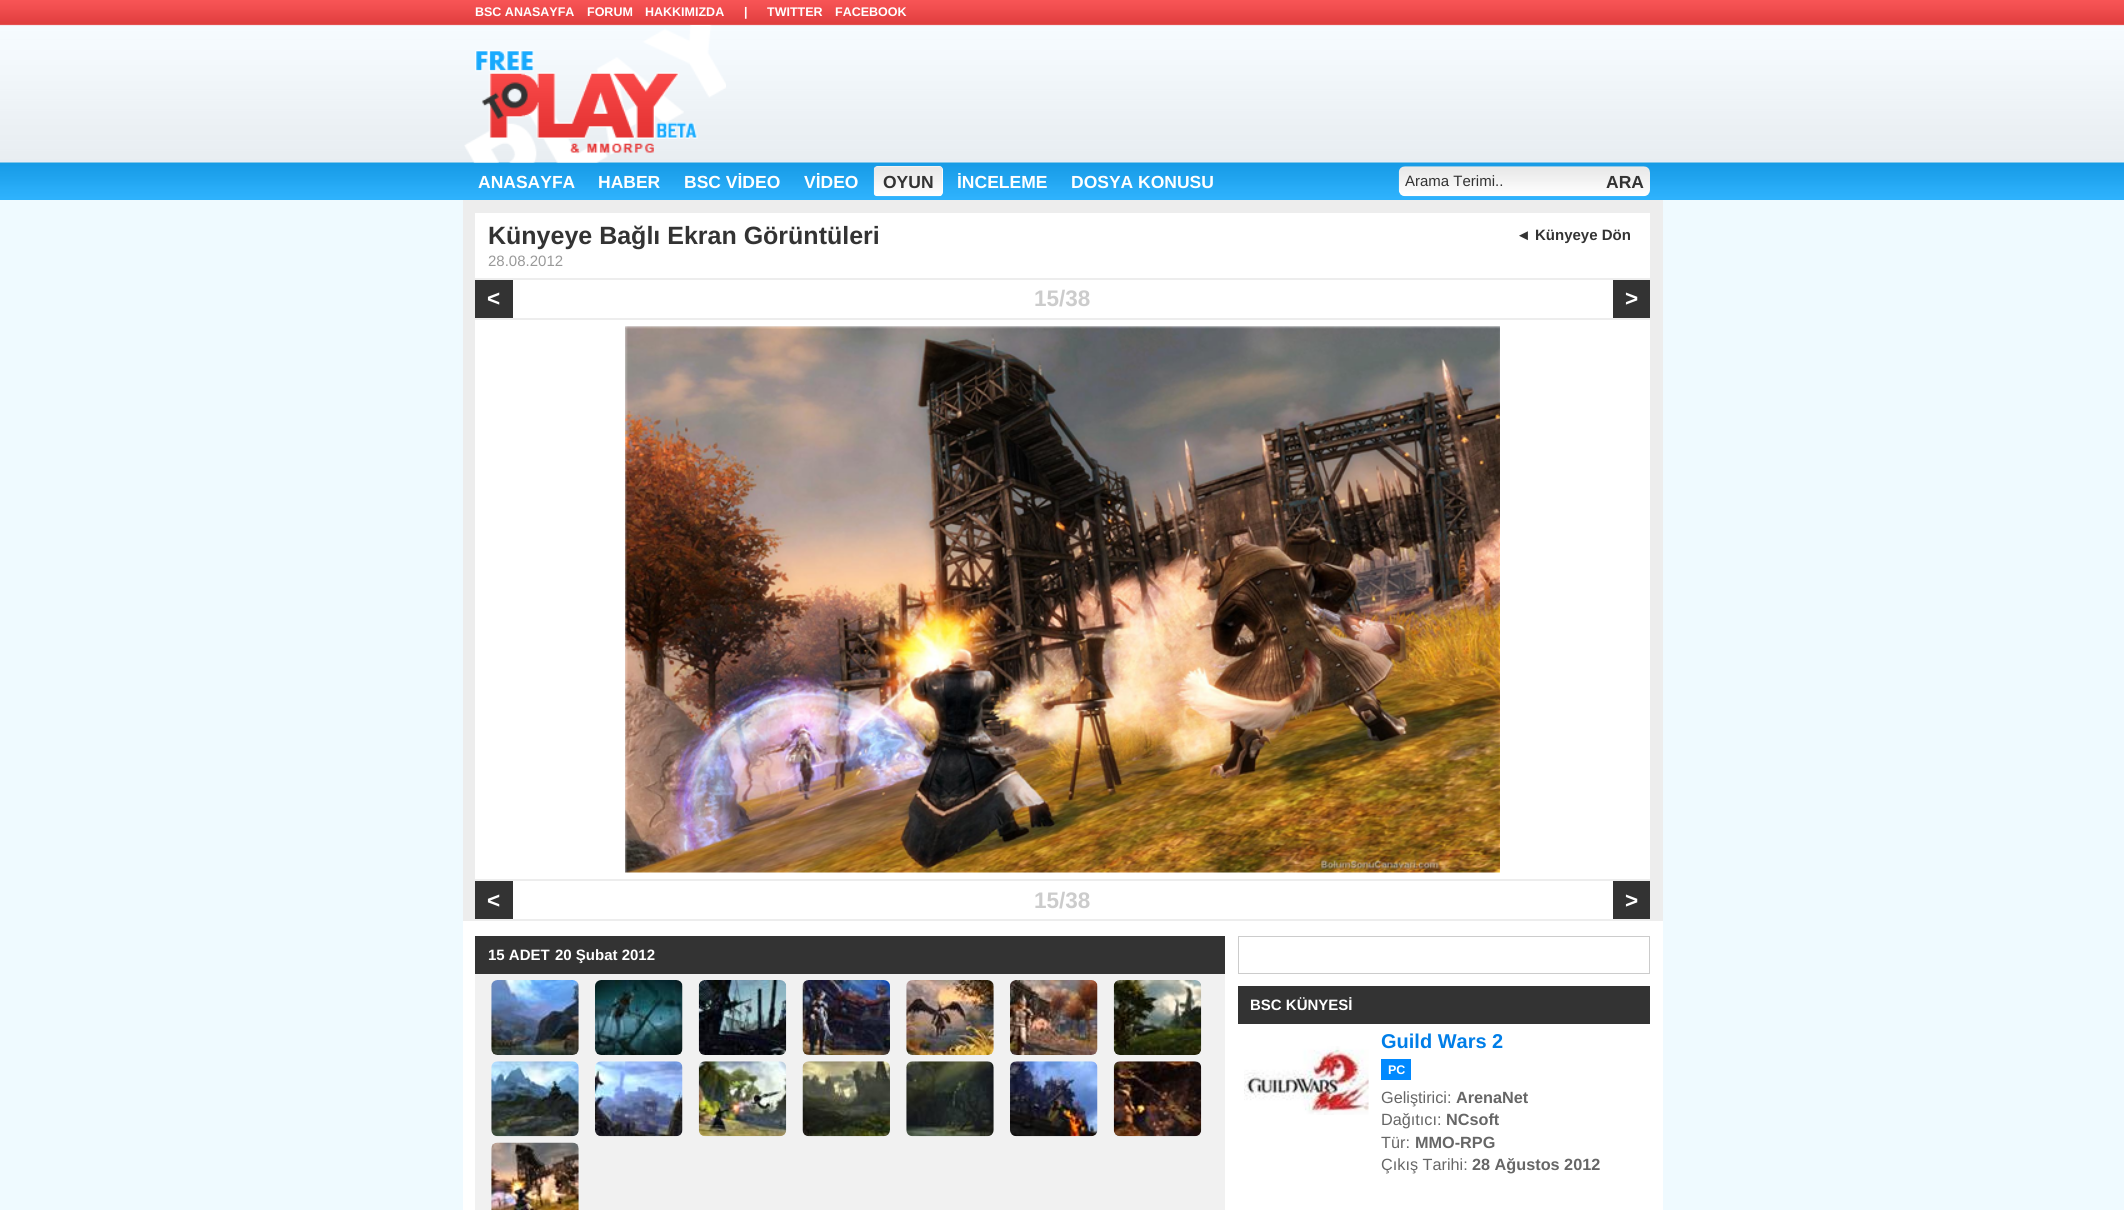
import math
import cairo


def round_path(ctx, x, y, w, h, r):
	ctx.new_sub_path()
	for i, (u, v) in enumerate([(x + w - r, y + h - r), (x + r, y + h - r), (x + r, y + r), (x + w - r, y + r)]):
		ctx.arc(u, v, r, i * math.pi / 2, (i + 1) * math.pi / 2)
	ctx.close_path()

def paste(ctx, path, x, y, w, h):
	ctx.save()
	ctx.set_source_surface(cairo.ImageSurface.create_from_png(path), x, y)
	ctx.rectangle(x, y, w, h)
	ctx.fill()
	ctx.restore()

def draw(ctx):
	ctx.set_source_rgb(0.937, 0.98, 1)
	ctx.paint()
	paste(ctx, 'media/1.png', 0, 0, 2124, 200)
	ctx.select_font_face('Liberation Sans', cairo.FONT_SLANT_NORMAL, cairo.FONT_WEIGHT_BOLD)
	ctx.set_font_size(12.5)
	ctx.set_source_rgb(1, 1, 1)
	for x, y, s in [
		(475, 16, 'BSC ANASAYFA'),
		(587, 16, 'FORUM'),
		(645, 16, 'HAKKIMIZDA'),
		(744, 16, '|'),
		(767, 16, 'TWITTER'),
		(835, 16, 'FACEBOOK'),
	]:
		ctx.move_to(x, y)
		ctx.show_text(s)
	paste(ctx, 'media/2.png', 464, 25, 262, 138)
	ctx.set_font_size(17.5)
	for x, y, s in [
		(478, 188, 'ANASAYFA'),
		(598, 188, 'HABER'),
		(684, 188, 'BSC VİDEO'),
		(804, 188, 'VİDEO'),
	]:
		ctx.move_to(x, y)
		ctx.show_text(s)
	round_path(ctx, 874, 166, 69, 30, 4)
	ctx.fill()
	paste(ctx, 'media/3.png', 873, 166, 70, 31)
	ctx.set_source_rgb(0.2, 0.2, 0.2)
	ctx.move_to(883, 188)
	ctx.show_text('OYUN')
	ctx.set_source_rgb(1, 1, 1)
	ctx.move_to(957, 188)
	ctx.show_text('İNCELEME')
	ctx.move_to(1071, 188)
	ctx.show_text('DOSYA KONUSU')
	paste(ctx, 'media/4.png', 1398, 166, 202, 31)
	ctx.select_font_face('Liberation Sans')
	ctx.set_font_size(15)
	ctx.set_source_rgb(0.2, 0.2, 0.2)
	ctx.move_to(1405, 186)
	ctx.show_text('Arama Terimi..')
	paste(ctx, 'media/5.png', 1600, 166, 50, 31)
	ctx.select_font_face('Liberation Sans', cairo.FONT_SLANT_NORMAL, cairo.FONT_WEIGHT_BOLD)
	ctx.set_font_size(17.5)
	ctx.move_to(1606, 188)
	ctx.show_text('ARA')
	ctx.set_source_rgb(1, 1, 1)
	ctx.rectangle(463, 921, 1200, 289)
	ctx.fill()
	ctx.set_source_rgb(0.929, 0.929, 0.929)
	ctx.rectangle(463, 200, 1200, 721)
	ctx.fill()
	ctx.set_source_rgb(1, 1, 1)
	ctx.rectangle(475, 213, 1175, 65)
	ctx.fill()
	ctx.set_font_size(25)
	ctx.set_source_rgb(0.2, 0.2, 0.2)
	ctx.move_to(488, 244)
	ctx.show_text('Künyeye Bağlı Ekran Görüntüleri')
	ctx.set_font_size(15)
	ctx.move_to(1516, 240)
	ctx.show_text('◄ Künyeye Dön')
	ctx.select_font_face('Liberation Sans')
	ctx.set_source_rgb(0.6, 0.6, 0.6)
	ctx.move_to(488, 266)
	ctx.show_text('28.08.2012')
	ctx.set_source_rgb(1, 1, 1)
	ctx.rectangle(513, 280, 1100, 38)
	ctx.fill()
	ctx.set_source_rgb(0.2, 0.2, 0.2)
	ctx.rectangle(475, 280, 38, 38)
	ctx.fill()
	ctx.select_font_face('Liberation Sans', cairo.FONT_SLANT_NORMAL, cairo.FONT_WEIGHT_BOLD)
	ctx.set_font_size(22.5)
	ctx.set_source_rgb(1, 1, 1)
	ctx.move_to(487, 306)
	ctx.show_text('<')
	ctx.set_source_rgb(0.8, 0.8, 0.8)
	ctx.move_to(1034, 306)
	ctx.show_text('15/38')
	ctx.set_source_rgb(0.2, 0.2, 0.2)
	ctx.rectangle(1613, 280, 37, 38)
	ctx.fill()
	ctx.set_source_rgb(1, 1, 1)
	ctx.move_to(1625, 306)
	ctx.show_text('>')
	ctx.rectangle(475, 320, 1175, 559)
	ctx.fill()
	paste(ctx, 'media/6.png', 625, 326, 875, 547)
	ctx.rectangle(513, 881, 1100, 38)
	ctx.fill()
	ctx.set_source_rgb(0.2, 0.2, 0.2)
	ctx.rectangle(475, 881, 38, 38)
	ctx.fill()
	ctx.set_source_rgb(1, 1, 1)
	ctx.move_to(487, 908)
	ctx.show_text('<')
	ctx.set_source_rgb(0.8, 0.8, 0.8)
	ctx.move_to(1034, 908)
	ctx.show_text('15/38')
	ctx.set_source_rgb(0.2, 0.2, 0.2)
	ctx.rectangle(1613, 881, 37, 38)
	ctx.fill()
	ctx.set_source_rgb(1, 1, 1)
	ctx.move_to(1625, 908)
	ctx.show_text('>')
	ctx.set_source_rgb(0.2, 0.2, 0.2)
	ctx.rectangle(475, 936, 750, 38)
	ctx.fill()
	ctx.set_font_size(15)
	ctx.set_source_rgb(1, 1, 1)
	ctx.move_to(488, 960)
	ctx.show_text('15 ADET')
	ctx.move_to(555, 960)
	ctx.show_text('20 Şubat 2012')
	ctx.set_source_rgb(0.945, 0.945, 0.945)
	ctx.rectangle(475, 974, 750, 236)
	ctx.fill()
	paste(ctx, 'media/7.png', 491, 980, 88, 75)
	paste(ctx, 'media/8.png', 595, 980, 88, 75)
	paste(ctx, 'media/9.png', 698, 980, 89, 75)
	paste(ctx, 'media/10.png', 802, 980, 88, 75)
	paste(ctx, 'media/11.png', 906, 980, 88, 75)
	paste(ctx, 'media/12.png', 1010, 980, 88, 75)
	paste(ctx, 'media/13.png', 1113, 980, 89, 75)
	paste(ctx, 'media/14.png', 491, 1061, 88, 76)
	paste(ctx, 'media/15.png', 595, 1061, 88, 76)
	paste(ctx, 'media/16.png', 698, 1061, 89, 76)
	paste(ctx, 'media/17.png', 802, 1061, 88, 76)
	paste(ctx, 'media/18.png', 906, 1061, 88, 76)
	paste(ctx, 'media/19.png', 1010, 1061, 88, 76)
	paste(ctx, 'media/20.png', 1113, 1061, 89, 76)
	paste(ctx, 'media/21.png', 491, 1142, 88, 68)
	ctx.rectangle(1238.5, 936.5, 411, 37)
	ctx.set_source_rgb(0.8, 0.8, 0.8)
	ctx.set_line_width(1)
	ctx.stroke()
	ctx.set_source_rgb(0.2, 0.2, 0.2)
	ctx.rectangle(1238, 986, 412, 38)
	ctx.fill()
	ctx.set_source_rgb(1, 1, 1)
	ctx.move_to(1250, 1010)
	ctx.show_text('BSC KÜNYESİ')
	paste(ctx, 'media/22.png', 1244, 1046, 125, 69)
	ctx.set_font_size(20)
	ctx.set_source_rgb(0, 0.494, 0.91)
	ctx.move_to(1381, 1048)
	ctx.show_text('Guild Wars 2')
	ctx.set_source_rgb(0.004, 0.537, 0.996)
	ctx.rectangle(1381, 1059, 30, 21)
	ctx.fill()
	ctx.set_font_size(12.5)
	ctx.set_source_rgb(1, 1, 1)
	ctx.move_to(1388, 1074)
	ctx.show_text('PC')
	ctx.select_font_face('Liberation Sans')
	ctx.set_font_size(16.25)
	ctx.set_source_rgb(0.4, 0.4, 0.4)
	ctx.move_to(1381, 1103)
	ctx.show_text('Geliştirici:')
	ctx.select_font_face('Liberation Sans', cairo.FONT_SLANT_NORMAL, cairo.FONT_WEIGHT_BOLD)
	ctx.move_to(1456, 1103)
	ctx.show_text('ArenaNet')
	ctx.select_font_face('Liberation Sans')
	ctx.move_to(1381, 1125)
	ctx.show_text('Dağıtıcı:')
	ctx.select_font_face('Liberation Sans', cairo.FONT_SLANT_NORMAL, cairo.FONT_WEIGHT_BOLD)
	ctx.move_to(1446, 1125)
	ctx.show_text('NCsoft')
	ctx.select_font_face('Liberation Sans')
	ctx.move_to(1381, 1148)
	ctx.show_text('Tür:')
	ctx.select_font_face('Liberation Sans', cairo.FONT_SLANT_NORMAL, cairo.FONT_WEIGHT_BOLD)
	ctx.move_to(1415, 1148)
	ctx.show_text('MMO-RPG')
	ctx.select_font_face('Liberation Sans')
	ctx.move_to(1381, 1170)
	ctx.show_text('Çıkış Tarihi:')
	ctx.select_font_face('Liberation Sans', cairo.FONT_SLANT_NORMAL, cairo.FONT_WEIGHT_BOLD)
	ctx.move_to(1472, 1170)
	ctx.show_text('28 Ağustos 2012')


surface = cairo.ImageSurface(cairo.FORMAT_RGB24, 2124, 1210)
ctx = cairo.Context(surface)
options = cairo.FontOptions()
options.set_hint_metrics(cairo.HINT_METRICS_OFF)
options.set_hint_style(cairo.HINT_STYLE_NONE)
ctx.set_font_options(options)
ctx.set_miter_limit(4)
draw(ctx)
surface.write_to_png('image.png')
